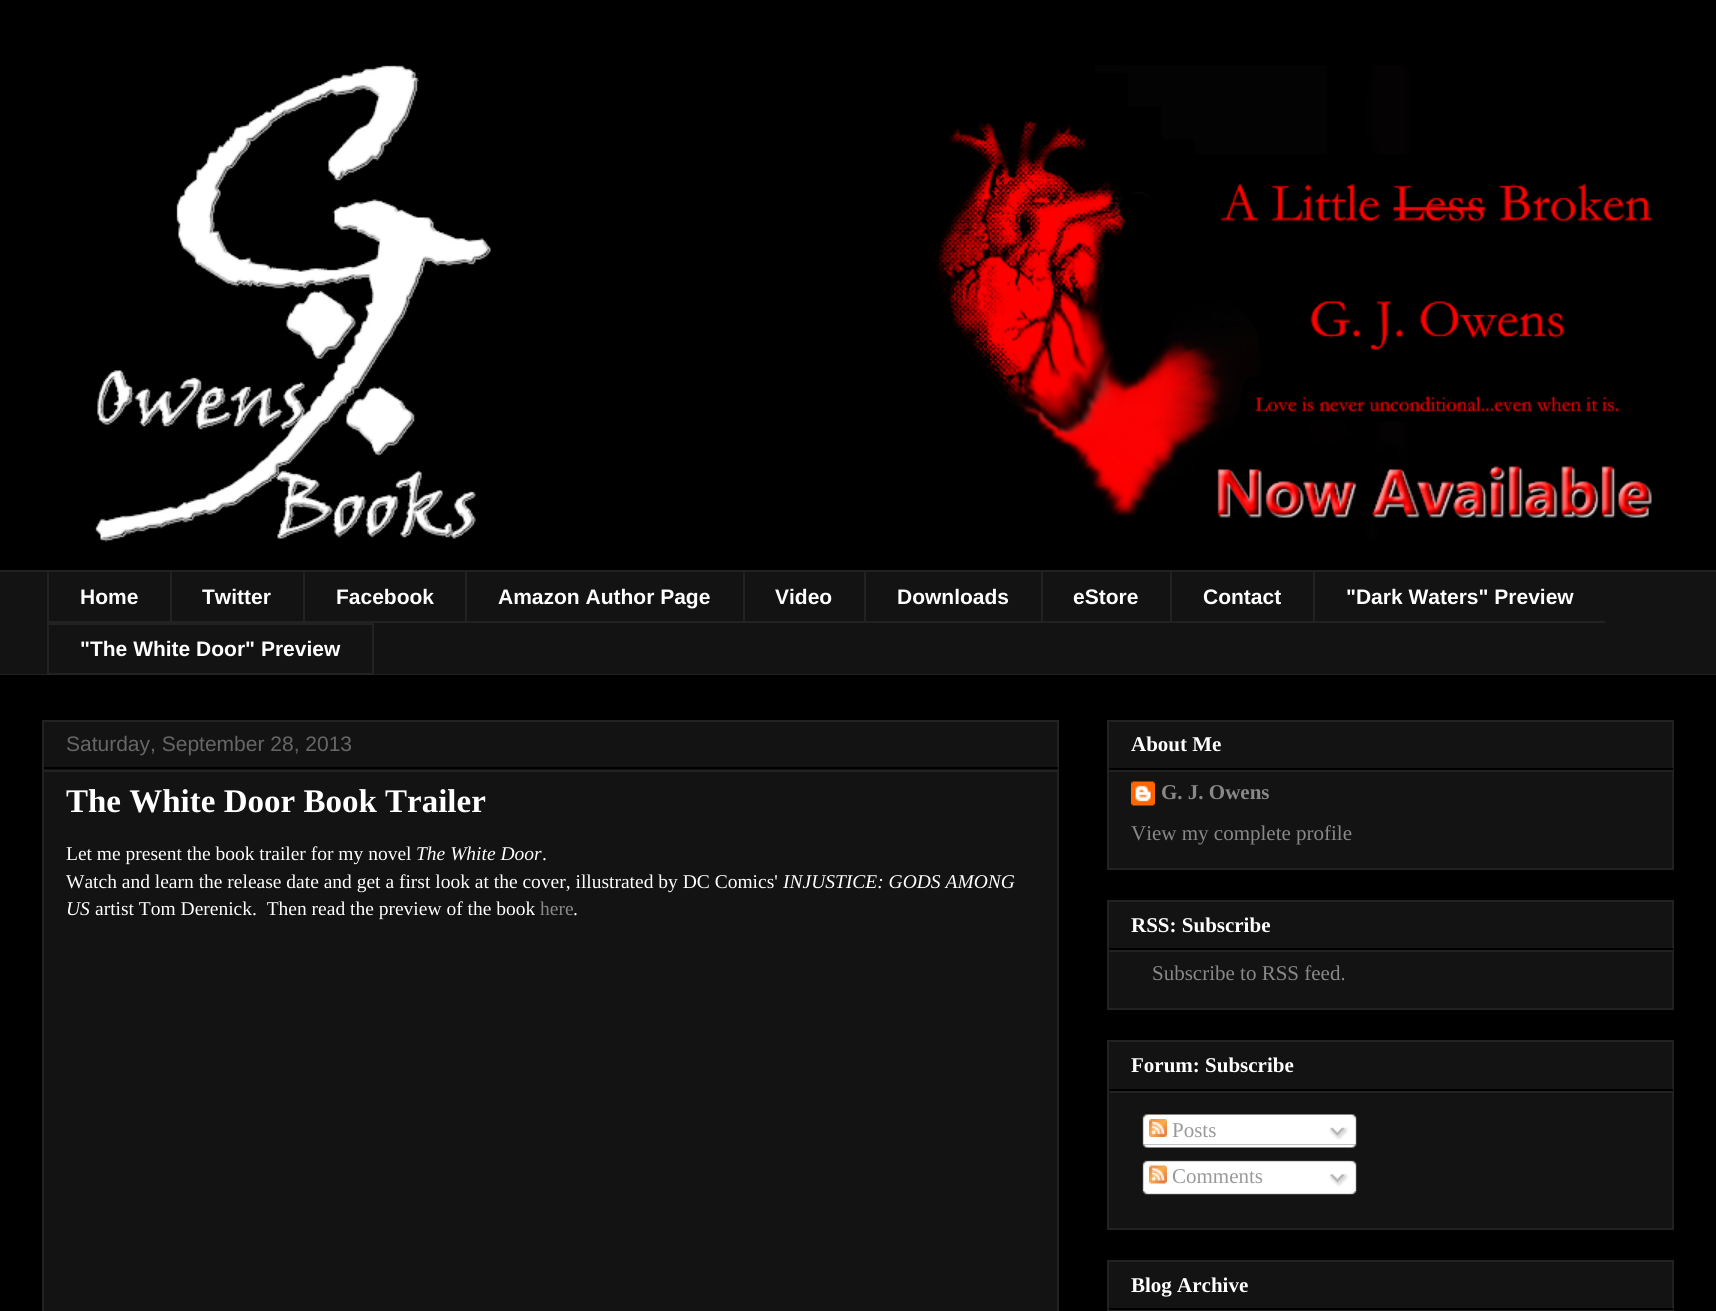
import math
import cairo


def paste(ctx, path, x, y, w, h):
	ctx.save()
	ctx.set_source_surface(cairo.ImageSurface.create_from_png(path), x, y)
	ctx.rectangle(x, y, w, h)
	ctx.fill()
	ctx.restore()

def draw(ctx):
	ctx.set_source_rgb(0, 0, 0)
	ctx.paint()
	paste(ctx, 'media/1.png', 95, 65, 1557, 477)
	ctx.set_source_rgb(0.078, 0.078, 0.078)
	ctx.rectangle(0, 572, 1716, 102)
	ctx.fill()
	ctx.set_source_rgb(0.133, 0.133, 0.133)
	ctx.rectangle(0, 570, 1716, 2)
	ctx.rectangle(47, 621, 1558, 2)
	ctx.rectangle(47, 570, 2, 53)
	ctx.fill()
	ctx.select_font_face('Liberation Sans', cairo.FONT_SLANT_NORMAL, cairo.FONT_WEIGHT_BOLD)
	ctx.set_font_size(21)
	ctx.set_source_rgb(1, 1, 1)
	ctx.move_to(80, 604)
	ctx.show_text('Home')
	ctx.set_source_rgb(0.133, 0.133, 0.133)
	ctx.rectangle(170, 570, 2, 53)
	ctx.fill()
	ctx.set_source_rgb(1, 1, 1)
	ctx.move_to(202, 604)
	ctx.show_text('Twitter')
	ctx.set_source_rgb(0.133, 0.133, 0.133)
	ctx.rectangle(303, 570, 2, 53)
	ctx.fill()
	ctx.set_source_rgb(1, 1, 1)
	ctx.move_to(336, 604)
	ctx.show_text('Facebook')
	ctx.set_source_rgb(0.133, 0.133, 0.133)
	ctx.rectangle(465, 570, 2, 53)
	ctx.fill()
	ctx.set_source_rgb(1, 1, 1)
	ctx.move_to(498, 604)
	ctx.show_text('Amazon Author Page')
	ctx.set_source_rgb(0.133, 0.133, 0.133)
	ctx.rectangle(743, 570, 2, 53)
	ctx.fill()
	ctx.set_source_rgb(1, 1, 1)
	ctx.move_to(775, 604)
	ctx.show_text('Video')
	ctx.set_source_rgb(0.133, 0.133, 0.133)
	ctx.rectangle(864, 570, 2, 53)
	ctx.fill()
	ctx.set_source_rgb(1, 1, 1)
	ctx.move_to(897, 604)
	ctx.show_text('Downloads')
	ctx.set_source_rgb(0.133, 0.133, 0.133)
	ctx.rectangle(1041, 570, 2, 53)
	ctx.fill()
	ctx.set_source_rgb(1, 1, 1)
	ctx.move_to(1073, 604)
	ctx.show_text('eStore')
	ctx.set_source_rgb(0.133, 0.133, 0.133)
	ctx.rectangle(1170, 570, 2, 53)
	ctx.fill()
	ctx.set_source_rgb(1, 1, 1)
	ctx.move_to(1203, 604)
	ctx.show_text('Contact')
	ctx.set_source_rgb(0.133, 0.133, 0.133)
	ctx.rectangle(1313, 570, 2, 53)
	ctx.fill()
	ctx.set_source_rgb(1, 1, 1)
	ctx.move_to(1346, 604)
	ctx.show_text('"Dark Waters" Preview')
	ctx.rectangle(48, 624, 325, 50)
	ctx.set_source_rgb(0.133, 0.133, 0.133)
	ctx.stroke()
	ctx.set_source_rgb(1, 1, 1)
	ctx.move_to(80, 656)
	ctx.show_text('"The White Door" Preview')
	ctx.set_source_rgb(0.133, 0.133, 0.133)
	ctx.rectangle(0, 674, 1716, 1)
	ctx.fill()
	ctx.set_source_rgb(0.078, 0.078, 0.078)
	ctx.rectangle(43, 721, 1015, 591)
	ctx.fill_preserve()
	ctx.set_source_rgb(0.133, 0.133, 0.133)
	ctx.stroke()
	ctx.set_source_rgb(0, 0, 0)
	ctx.rectangle(44, 767, 1014, 2)
	ctx.fill()
	ctx.select_font_face('Liberation Sans')
	ctx.set_source_rgb(0.4, 0.4, 0.4)
	ctx.move_to(66, 751)
	ctx.show_text('Saturday, September 28, 2013')
	ctx.set_source_rgb(0.133, 0.133, 0.133)
	ctx.rectangle(44, 770, 1014, 2)
	ctx.fill()
	ctx.select_font_face('Liberation Serif', cairo.FONT_SLANT_NORMAL, cairo.FONT_WEIGHT_BOLD)
	ctx.set_font_size(33)
	ctx.set_source_rgb(1, 1, 1)
	ctx.move_to(66, 812)
	ctx.show_text('The White Door Book Trailer')
	ctx.select_font_face('Liberation Serif')
	ctx.set_font_size(19.5)
	ctx.move_to(66, 860)
	ctx.show_text('Let me present the book trailer for my novel')
	ctx.select_font_face('Liberation Serif', cairo.FONT_SLANT_ITALIC)
	ctx.move_to(416, 860)
	ctx.show_text('The White Door')
	ctx.select_font_face('Liberation Serif')
	ctx.move_to(542, 860)
	ctx.show_text('.')
	ctx.move_to(66, 888)
	ctx.show_text('Watch and learn the release date and get a first look at the cover, illustrated by DC Comics\'')
	ctx.select_font_face('Liberation Serif', cairo.FONT_SLANT_ITALIC)
	ctx.move_to(783, 888)
	ctx.show_text('INJUSTICE: GODS AMONG')
	ctx.move_to(66, 915)
	ctx.show_text('US')
	ctx.select_font_face('Liberation Serif')
	ctx.move_to(95, 915)
	ctx.show_text('artist Tom Derenick.  Then read the preview of the book')
	ctx.set_source_rgb(0.533, 0.533, 0.533)
	ctx.move_to(540, 915)
	ctx.show_text('here')
	ctx.set_source_rgb(1, 1, 1)
	ctx.move_to(573, 915)
	ctx.show_text('.')
	ctx.set_source_rgb(0.078, 0.078, 0.078)
	ctx.rectangle(1108, 721, 565, 148)
	ctx.fill_preserve()
	ctx.set_source_rgb(0.133, 0.133, 0.133)
	ctx.stroke()
	ctx.set_source_rgb(0, 0, 0)
	ctx.rectangle(1109, 768, 564, 2)
	ctx.fill()
	ctx.select_font_face('Liberation Serif', cairo.FONT_SLANT_NORMAL, cairo.FONT_WEIGHT_BOLD)
	ctx.set_font_size(21)
	ctx.set_source_rgb(1, 1, 1)
	ctx.move_to(1131, 751)
	ctx.show_text('About Me')
	ctx.set_source_rgb(0.133, 0.133, 0.133)
	ctx.rectangle(1109, 770, 564, 2)
	ctx.fill()
	paste(ctx, 'media/2.png', 1131, 781, 24, 25)
	ctx.set_source_rgb(0.533, 0.533, 0.533)
	ctx.move_to(1161, 799)
	ctx.show_text('G. J. Owens')
	ctx.select_font_face('Liberation Serif')
	ctx.move_to(1131, 840)
	ctx.show_text('View my complete profile')
	ctx.set_source_rgb(0.078, 0.078, 0.078)
	ctx.rectangle(1108, 901, 565, 108)
	ctx.fill_preserve()
	ctx.set_source_rgb(0.133, 0.133, 0.133)
	ctx.stroke()
	ctx.set_source_rgb(0, 0, 0)
	ctx.rectangle(1109, 948, 564, 2)
	ctx.fill()
	ctx.select_font_face('Liberation Serif', cairo.FONT_SLANT_NORMAL, cairo.FONT_WEIGHT_BOLD)
	ctx.set_source_rgb(1, 1, 1)
	ctx.move_to(1131, 932)
	ctx.show_text('RSS: Subscribe')
	ctx.set_source_rgb(0.133, 0.133, 0.133)
	ctx.rectangle(1109, 950, 564, 2)
	ctx.fill()
	ctx.select_font_face('Liberation Serif')
	ctx.set_source_rgb(0.533, 0.533, 0.533)
	ctx.move_to(1152, 980)
	ctx.show_text('Subscribe to RSS feed.')
	ctx.set_source_rgb(0.078, 0.078, 0.078)
	ctx.rectangle(1108, 1041, 565, 188)
	ctx.fill_preserve()
	ctx.set_source_rgb(0.133, 0.133, 0.133)
	ctx.stroke()
	ctx.set_source_rgb(0, 0, 0)
	ctx.rectangle(1109, 1089, 564, 2)
	ctx.fill()
	ctx.select_font_face('Liberation Serif', cairo.FONT_SLANT_NORMAL, cairo.FONT_WEIGHT_BOLD)
	ctx.set_source_rgb(1, 1, 1)
	ctx.move_to(1131, 1072)
	ctx.show_text('Forum: Subscribe')
	ctx.set_source_rgb(0.133, 0.133, 0.133)
	ctx.rectangle(1109, 1091, 564, 2)
	ctx.fill()
	paste(ctx, 'media/3.png', 1142, 1114, 215, 31)
	paste(ctx, 'media/4.png', 1149, 1119, 18, 18)
	ctx.select_font_face('Liberation Serif')
	ctx.set_source_rgb(0.6, 0.6, 0.6)
	ctx.move_to(1172, 1137)
	ctx.show_text('Posts')
	paste(ctx, 'media/5.png', 1329, 1127, 20, 13)
	paste(ctx, 'media/6.png', 1142, 1144, 215, 4)
	paste(ctx, 'media/7.png', 1142, 1160, 215, 31)
	paste(ctx, 'media/8.png', 1149, 1165, 18, 19)
	ctx.move_to(1172, 1183)
	ctx.show_text('Comments')
	paste(ctx, 'media/9.png', 1329, 1173, 20, 14)
	paste(ctx, 'media/10.png', 1142, 1191, 215, 4)
	ctx.set_source_rgb(0.078, 0.078, 0.078)
	ctx.rectangle(1109, 1262, 563, 46)
	ctx.fill()
	ctx.rectangle(1108, 1261, 565, 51)
	ctx.set_source_rgb(0.133, 0.133, 0.133)
	ctx.stroke()
	ctx.set_source_rgb(0, 0, 0)
	ctx.rectangle(1672, 1308, 1, 2)
	ctx.fill()
	ctx.select_font_face('Liberation Serif', cairo.FONT_SLANT_NORMAL, cairo.FONT_WEIGHT_BOLD)
	ctx.set_source_rgb(1, 1, 1)
	ctx.move_to(1131, 1292)
	ctx.show_text('Blog Archive')
	ctx.set_source_rgb(0.133, 0.133, 0.133)
	ctx.rectangle(1109, 1310, 564, 1)
	ctx.fill()


surface = cairo.ImageSurface(cairo.FORMAT_RGB24, 1716, 1311)
ctx = cairo.Context(surface)
options = cairo.FontOptions()
options.set_hint_metrics(cairo.HINT_METRICS_OFF)
options.set_hint_style(cairo.HINT_STYLE_NONE)
ctx.set_font_options(options)
ctx.set_miter_limit(4)
draw(ctx)
surface.write_to_png('image.png')
